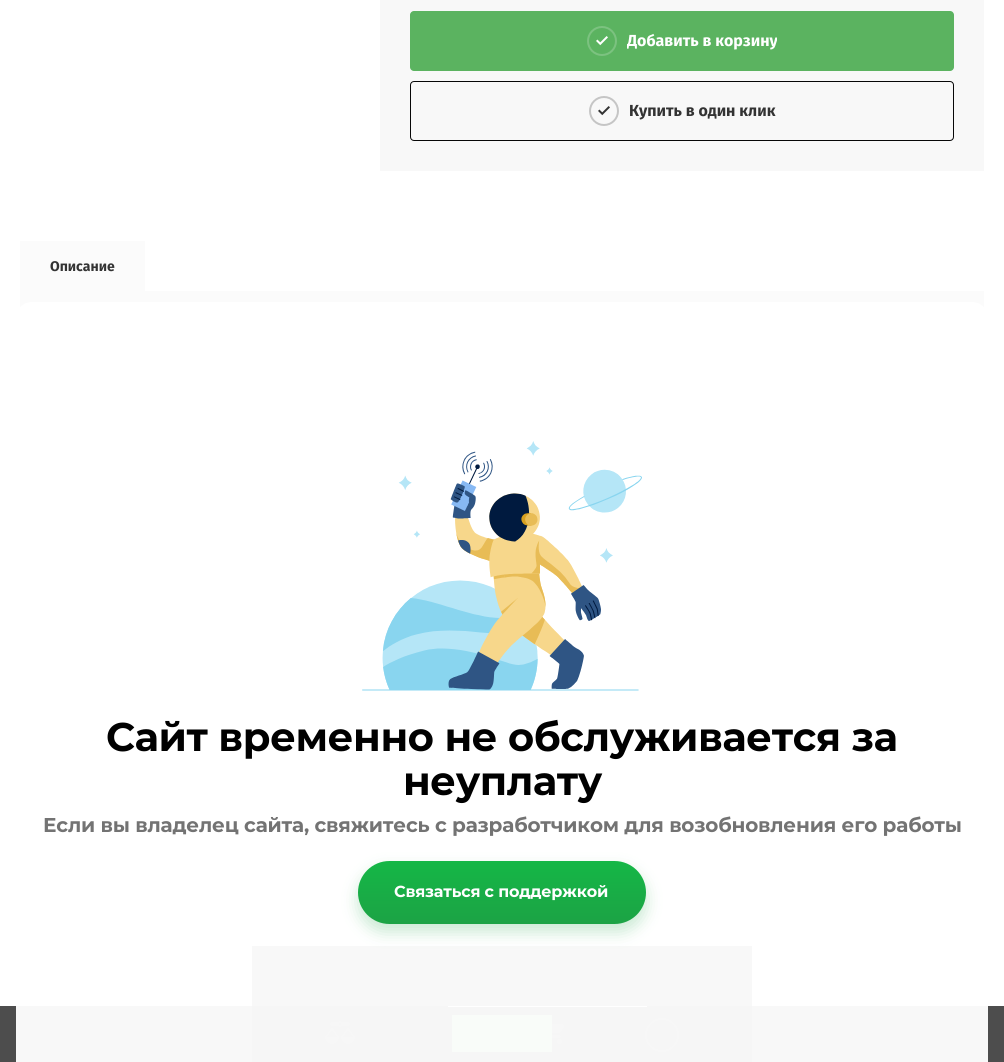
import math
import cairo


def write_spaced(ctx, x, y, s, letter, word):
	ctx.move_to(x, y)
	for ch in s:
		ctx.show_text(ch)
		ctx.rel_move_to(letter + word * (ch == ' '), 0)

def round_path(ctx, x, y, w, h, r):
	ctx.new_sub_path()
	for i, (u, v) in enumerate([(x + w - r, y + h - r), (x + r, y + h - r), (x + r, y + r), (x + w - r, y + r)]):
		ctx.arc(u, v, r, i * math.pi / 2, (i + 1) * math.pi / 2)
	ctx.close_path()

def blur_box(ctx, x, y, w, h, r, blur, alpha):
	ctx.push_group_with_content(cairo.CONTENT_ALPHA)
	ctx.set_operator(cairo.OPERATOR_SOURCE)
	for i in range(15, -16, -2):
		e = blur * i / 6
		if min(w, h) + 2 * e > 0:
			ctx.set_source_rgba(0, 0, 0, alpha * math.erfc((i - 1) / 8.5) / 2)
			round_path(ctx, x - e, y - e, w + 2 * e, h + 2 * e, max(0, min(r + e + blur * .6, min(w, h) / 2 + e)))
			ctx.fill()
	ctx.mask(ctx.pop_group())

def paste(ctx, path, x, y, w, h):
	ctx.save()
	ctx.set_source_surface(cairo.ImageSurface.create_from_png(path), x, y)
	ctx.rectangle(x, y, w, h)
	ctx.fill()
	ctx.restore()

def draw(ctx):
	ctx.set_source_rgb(1, 1, 1)
	ctx.paint()
	ctx.set_source_rgb(0.302, 0.302, 0.302)
	ctx.rectangle(0, 1006, 1004, 56)
	ctx.fill()
	ctx.set_source_rgb(0.969, 0.969, 0.969)
	ctx.rectangle(380, 0, 604, 171)
	ctx.fill()
	ctx.set_source_rgb(0.357, 0.702, 0.376)
	round_path(ctx, 410, 11, 544, 60, 4)
	ctx.fill()
	paste(ctx, 'media/1.png', 596, 36, 12, 10)
	ctx.arc(602, 41, 14, 0, 2 * math.pi)
	ctx.set_source_rgb(0.486, 0.761, 0.502)
	ctx.stroke()
	ctx.save()
	ctx.rectangle(627, 24, 150, 34)
	ctx.clip()
	ctx.select_font_face('Fira Sans', cairo.FONT_SLANT_NORMAL, cairo.FONT_WEIGHT_BOLD)
	ctx.set_font_size(16)
	ctx.set_source_rgb(1, 1, 1)
	ctx.move_to(627, 46)
	ctx.show_text('Добавить в корзину')
	ctx.restore()
	round_path(ctx, 410.5, 81.5, 543, 59, 3.5)
	ctx.set_source_rgb(0.031, 0.031, 0.031)
	ctx.set_line_width(1)
	ctx.stroke()
	paste(ctx, 'media/2.png', 598, 106, 12, 10)
	ctx.arc(604, 111, 14, 0, 2 * math.pi)
	ctx.set_source_rgb(0.773, 0.773, 0.773)
	ctx.set_line_width(2)
	ctx.stroke()
	ctx.select_font_face('Fira Sans', cairo.FONT_SLANT_NORMAL, cairo.FONT_WEIGHT_BOLD)
	ctx.set_font_size(16)
	ctx.set_source_rgb(0.2, 0.2, 0.2)
	ctx.move_to(629, 116)
	ctx.show_text('Купить в один клик')
	ctx.set_source_rgb(0.984, 0.984, 0.984)
	ctx.rectangle(20, 241, 125, 50)
	ctx.fill()
	ctx.set_font_size(14)
	ctx.set_source_rgb(0.2, 0.2, 0.2)
	ctx.move_to(50, 271)
	ctx.show_text('Описание')
	ctx.set_source_rgb(0.984, 0.984, 0.984)
	ctx.rectangle(20, 291, 964, 715)
	ctx.fill()
	paste(ctx, 'media/3.png', 325, 1021, 30, 23)
	paste(ctx, 'media/4.png', 552, 1024, 12, 20)
	ctx.arc(662, 1035, 16, 0, 2 * math.pi)
	ctx.set_source_rgb(0.647, 0.647, 0.647)
	ctx.stroke()
	ctx.set_source_rgba(0, 0, 0, 0.7)
	ctx.rectangle(252, 946, 500, 116)
	ctx.fill()
	ctx.set_source_rgb(1, 1, 1)
	ctx.rectangle(448, 1006, 199, 1)
	ctx.fill()
	ctx.set_source_rgb(0.357, 0.702, 0.376)
	ctx.rectangle(452, 1015, 100, 37)
	ctx.fill()
	ctx.set_source_rgba(1, 1, 1, 0.96)
	ctx.new_path()
	ctx.move_to(32, 302)
	ctx.line_to(972, 302)
	ctx.curve_to(981, 302, 988, 309, 988, 318)
	ctx.line_to(988, 1062)
	ctx.line_to(16, 1062)
	ctx.line_to(16, 318)
	ctx.curve_to(16, 309, 23, 302, 32, 302)
	ctx.close_path()
	ctx.fill()
	paste(ctx, 'media/5.png', 362, 441, 280, 250)
	ctx.select_font_face('Montserrat', cairo.FONT_SLANT_NORMAL, cairo.FONT_WEIGHT_BOLD)
	ctx.set_font_size(40)
	ctx.set_source_rgb(0, 0, 0)
	write_spaced(ctx, 106, 751, 'Сайт временно не обслуживается за', -0.4, 0)
	write_spaced(ctx, 403, 795, 'неуплату', -0.4, 0)
	ctx.set_font_size(20)
	ctx.set_source_rgb(0.451, 0.451, 0.451)
	write_spaced(ctx, 43, 832, 'Если вы владелец сайта, свяжитесь с разработчиком для возобновления его работы', -0.2, 0)
	ctx.set_source_rgb(0.11, 0.639, 0.271)
	blur_box(ctx, 358, 869, 288, 63, 31.5, 8, 0.24)
	gradient = cairo.LinearGradient(502, 861, 502, 924)
	gradient.add_color_stop_rgba(0, 0.082, 0.718, 0.275, 1)
	gradient.add_color_stop_rgba(1, 0.11, 0.639, 0.271, 1)
	ctx.set_source(gradient)
	round_path(ctx, 358, 861, 288, 63, 31.5)
	ctx.fill()
	ctx.set_font_size(16)
	ctx.set_source_rgb(1, 1, 1)
	write_spaced(ctx, 394, 897, 'Связаться с поддержкой', -0.2, 0)


surface = cairo.ImageSurface(cairo.FORMAT_RGB24, 1004, 1062)
ctx = cairo.Context(surface)
options = cairo.FontOptions()
options.set_hint_metrics(cairo.HINT_METRICS_OFF)
options.set_hint_style(cairo.HINT_STYLE_NONE)
ctx.set_font_options(options)
ctx.set_miter_limit(4)
draw(ctx)
surface.write_to_png('image.png')
